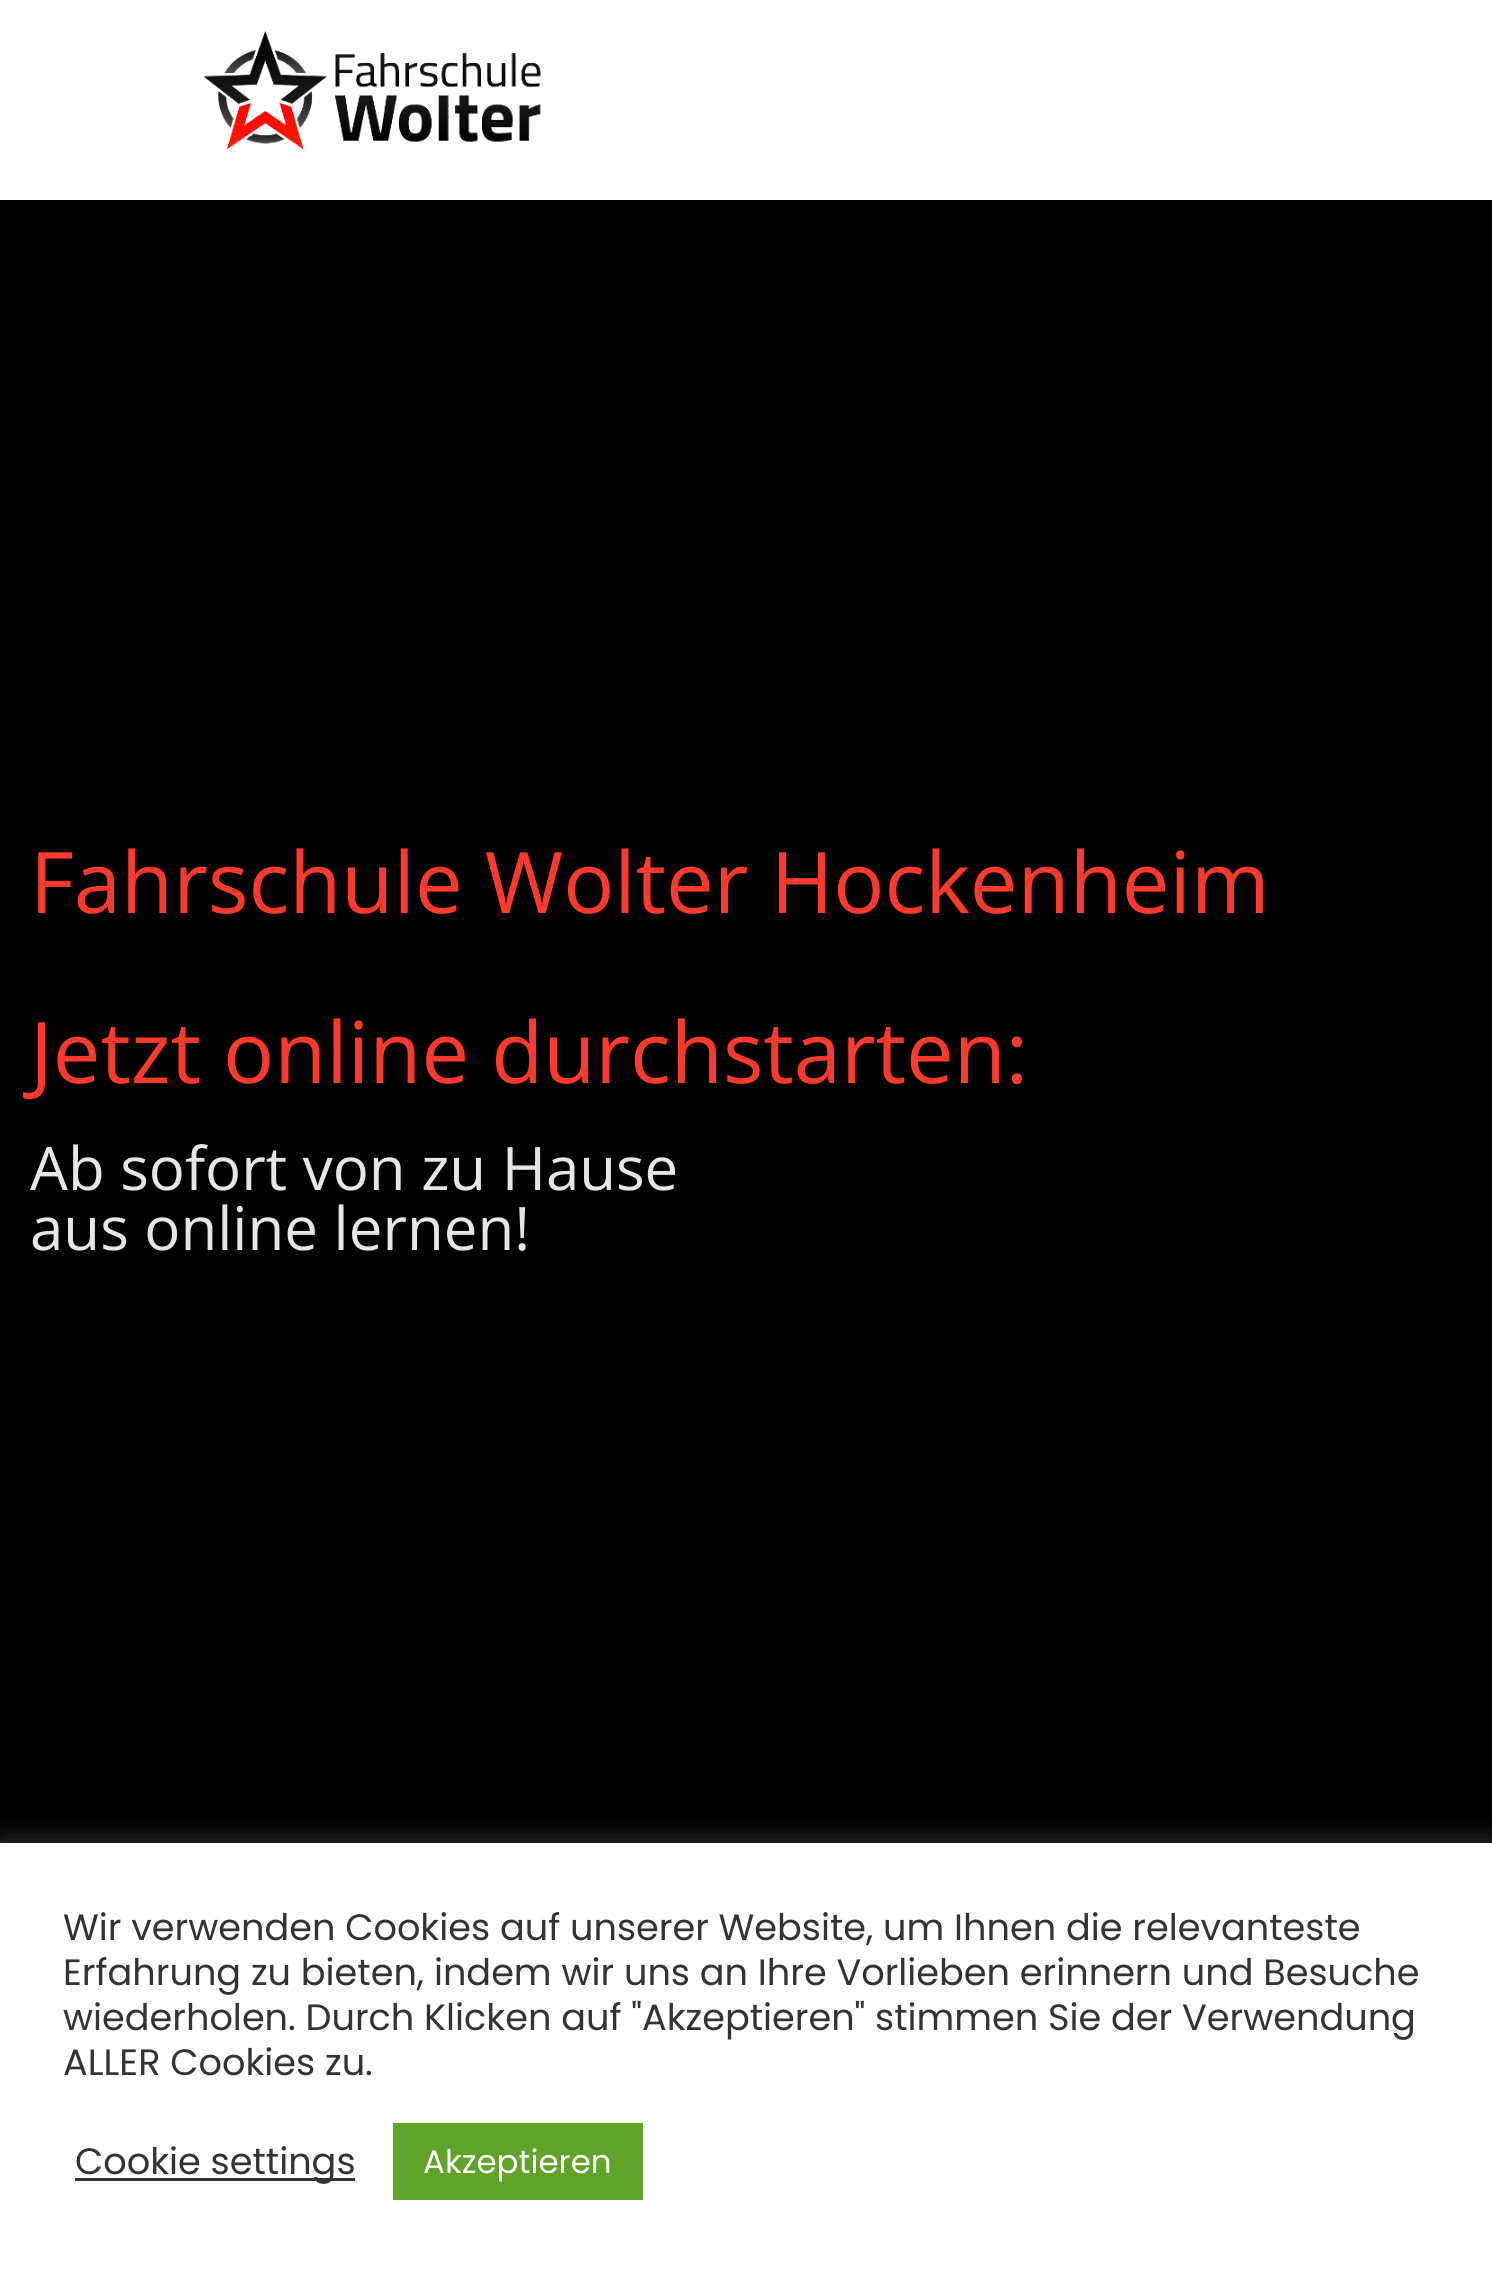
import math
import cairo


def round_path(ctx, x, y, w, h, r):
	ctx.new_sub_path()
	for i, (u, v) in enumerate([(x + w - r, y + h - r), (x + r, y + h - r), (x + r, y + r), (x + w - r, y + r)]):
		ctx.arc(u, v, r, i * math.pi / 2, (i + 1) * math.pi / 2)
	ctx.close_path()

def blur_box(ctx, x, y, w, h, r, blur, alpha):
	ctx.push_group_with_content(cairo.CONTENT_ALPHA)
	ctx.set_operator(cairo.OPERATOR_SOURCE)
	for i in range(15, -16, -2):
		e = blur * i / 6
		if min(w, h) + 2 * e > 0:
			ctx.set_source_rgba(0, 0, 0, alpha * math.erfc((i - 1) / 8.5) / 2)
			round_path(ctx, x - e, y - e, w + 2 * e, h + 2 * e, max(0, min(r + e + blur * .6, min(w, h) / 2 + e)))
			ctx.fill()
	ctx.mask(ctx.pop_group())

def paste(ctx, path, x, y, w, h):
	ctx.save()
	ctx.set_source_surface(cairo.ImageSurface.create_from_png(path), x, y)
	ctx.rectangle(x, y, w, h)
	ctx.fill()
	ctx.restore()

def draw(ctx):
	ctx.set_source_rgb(0, 0, 0)
	ctx.paint()
	ctx.set_source_rgb(1, 1, 1)
	ctx.rectangle(0, 0, 1492, 200)
	ctx.fill()
	paste(ctx, 'media/1.png', 203, 31, 338, 119)
	ctx.select_font_face('Open Sans')
	ctx.set_font_size(85)
	ctx.set_source_rgb(1, 0.227, 0.176)
	ctx.move_to(30, 913)
	ctx.show_text('Fahrschule Wolter Hockenheim')
	ctx.move_to(30, 1083)
	ctx.show_text('Jetzt online durchstarten:')
	ctx.set_font_size(60)
	ctx.set_source_rgb(0.902, 0.902, 0.902)
	ctx.move_to(30, 1190)
	ctx.show_text('Ab sofort von zu Hause')
	ctx.move_to(30, 1250)
	ctx.show_text('aus online lernen!')
	ctx.set_source_rgb(0.675, 0.671, 0.671)
	blur_box(ctx, 0, 1840, 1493, 433, 0, 12.5, 0.3)
	ctx.set_source_rgb(1, 1, 1)
	ctx.rectangle(0, 1843, 1492, 432)
	ctx.fill()
	ctx.select_font_face('Poppins')
	ctx.set_font_size(36.65)
	ctx.set_source_rgb(0.2, 0.2, 0.2)
	for x, y, s in [
		(63, 1940, 'Wir verwenden Cookies auf unserer Website, um Ihnen die relevanteste'),
		(63, 1985, 'Erfahrung zu bieten, indem wir uns an Ihre Vorlieben erinnern und Besuche'),
		(63, 2030, 'wiederholen. Durch Klicken auf "Akzeptieren" stimmen Sie der Verwendung'),
		(63, 2075, 'ALLER Cookies zu.'),
	]:
		ctx.move_to(x, y)
		ctx.show_text(s)
	ctx.rectangle(75, 2178, 280, 3)
	ctx.fill()
	ctx.move_to(75, 2174)
	ctx.show_text('Cookie settings')
	ctx.set_source_rgb(0.38, 0.635, 0.161)
	ctx.rectangle(393, 2123, 250, 77)
	ctx.fill()
	ctx.set_font_size(32.5)
	ctx.set_source_rgb(1, 1, 1)
	ctx.move_to(423, 2173)
	ctx.show_text('Akzeptieren')


surface = cairo.ImageSurface(cairo.FORMAT_RGB24, 1492, 2275)
ctx = cairo.Context(surface)
options = cairo.FontOptions()
options.set_hint_metrics(cairo.HINT_METRICS_OFF)
options.set_hint_style(cairo.HINT_STYLE_NONE)
ctx.set_font_options(options)
ctx.set_miter_limit(4)
draw(ctx)
surface.write_to_png('image.png')
